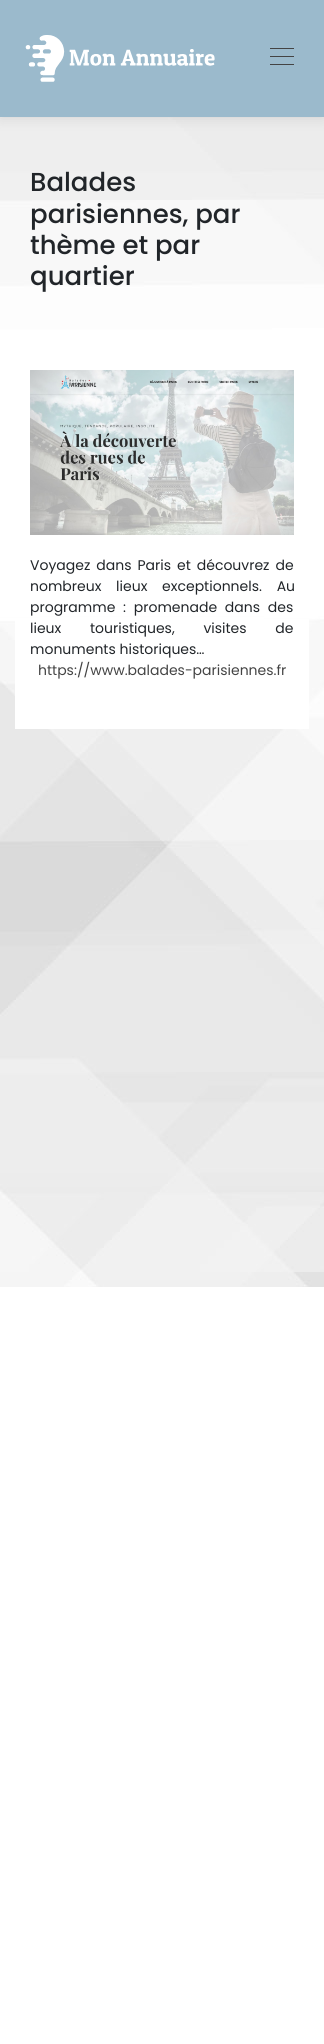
import math
import cairo


def write_spaced(ctx, x, y, s, letter, word):
	ctx.move_to(x, y)
	for ch in s:
		ctx.show_text(ch)
		ctx.rel_move_to(letter + word * (ch == ' '), 0)

def round_path(ctx, x, y, w, h, r):
	ctx.new_sub_path()
	for i, (u, v) in enumerate([(x + w - r, y + h - r), (x + r, y + h - r), (x + r, y + r), (x + w - r, y + r)]):
		ctx.arc(u, v, r, i * math.pi / 2, (i + 1) * math.pi / 2)
	ctx.close_path()

def blur_box(ctx, x, y, w, h, r, blur, alpha):
	ctx.push_group_with_content(cairo.CONTENT_ALPHA)
	ctx.set_operator(cairo.OPERATOR_SOURCE)
	for i in range(15, -16, -2):
		e = blur * i / 6
		if min(w, h) + 2 * e > 0:
			ctx.set_source_rgba(0, 0, 0, alpha * math.erfc((i - 1) / 8.5) / 2)
			round_path(ctx, x - e, y - e, w + 2 * e, h + 2 * e, max(0, min(r + e + blur * .6, min(w, h) / 2 + e)))
			ctx.fill()
	ctx.mask(ctx.pop_group())

def paste(ctx, path, x, y, w, h):
	ctx.save()
	ctx.set_source_surface(cairo.ImageSurface.create_from_png(path), x, y)
	ctx.rectangle(x, y, w, h)
	ctx.fill()
	ctx.restore()

def draw(ctx):
	ctx.set_source_rgb(1, 1, 1)
	ctx.paint()
	paste(ctx, 'media/1.png', 0, 117, 324, 1170)
	ctx.set_source_rgb(0, 0, 0)
	blur_box(ctx, 0, 2, 324, 117, 0, 6.5, 0.1)
	ctx.set_source_rgb(0.608, 0.729, 0.8)
	ctx.rectangle(0, 0, 324, 117)
	ctx.fill()
	paste(ctx, 'media/2.png', 25, 35, 190, 47)
	ctx.set_source_rgb(0.267, 0.267, 0.267)
	ctx.rectangle(270, 48, 24, 1)
	ctx.rectangle(270, 56, 24, 1)
	ctx.rectangle(270, 64, 24, 1)
	ctx.fill()
	ctx.select_font_face('Poppins Medium')
	ctx.set_font_size(26)
	ctx.set_source_rgb(0.129, 0.145, 0.161)
	for x, y, s in [
		(30, 191, 'Balades'),
		(30, 223, 'parisiennes, par'),
		(30, 254, 'thème et par'),
		(30, 285, 'quartier'),
	]:
		ctx.move_to(x, y)
		ctx.show_text(s)
	ctx.set_source_rgb(1, 1, 1)
	ctx.rectangle(15, 619, 294, 110)
	ctx.fill()
	paste(ctx, 'media/3.png', 30, 370, 264, 165)
	ctx.select_font_face('Poppins')
	ctx.set_font_size(14)
	ctx.set_source_rgb(0.129, 0.145, 0.161)
	write_spaced(ctx, 30, 570, 'Voyagez dans Paris et découvrez de', 0, 2.25)
	write_spaced(ctx, 30, 591, 'nombreux lieux exceptionnels. Au', 0, 11)
	write_spaced(ctx, 30, 612, 'programme : promenade dans des', 0, 4)
	write_spaced(ctx, 30, 633, 'lieux touristiques, visites de', 0, 25)
	ctx.move_to(30, 654)
	ctx.show_text('monuments historiques…')
	ctx.set_source_rgb(0.267, 0.267, 0.267)
	ctx.move_to(38, 675)
	ctx.show_text('https://www.balades-parisiennes.fr')


surface = cairo.ImageSurface(cairo.FORMAT_RGB24, 324, 2044)
ctx = cairo.Context(surface)
options = cairo.FontOptions()
options.set_hint_metrics(cairo.HINT_METRICS_OFF)
options.set_hint_style(cairo.HINT_STYLE_NONE)
ctx.set_font_options(options)
ctx.set_miter_limit(4)
draw(ctx)
surface.write_to_png('image.png')
